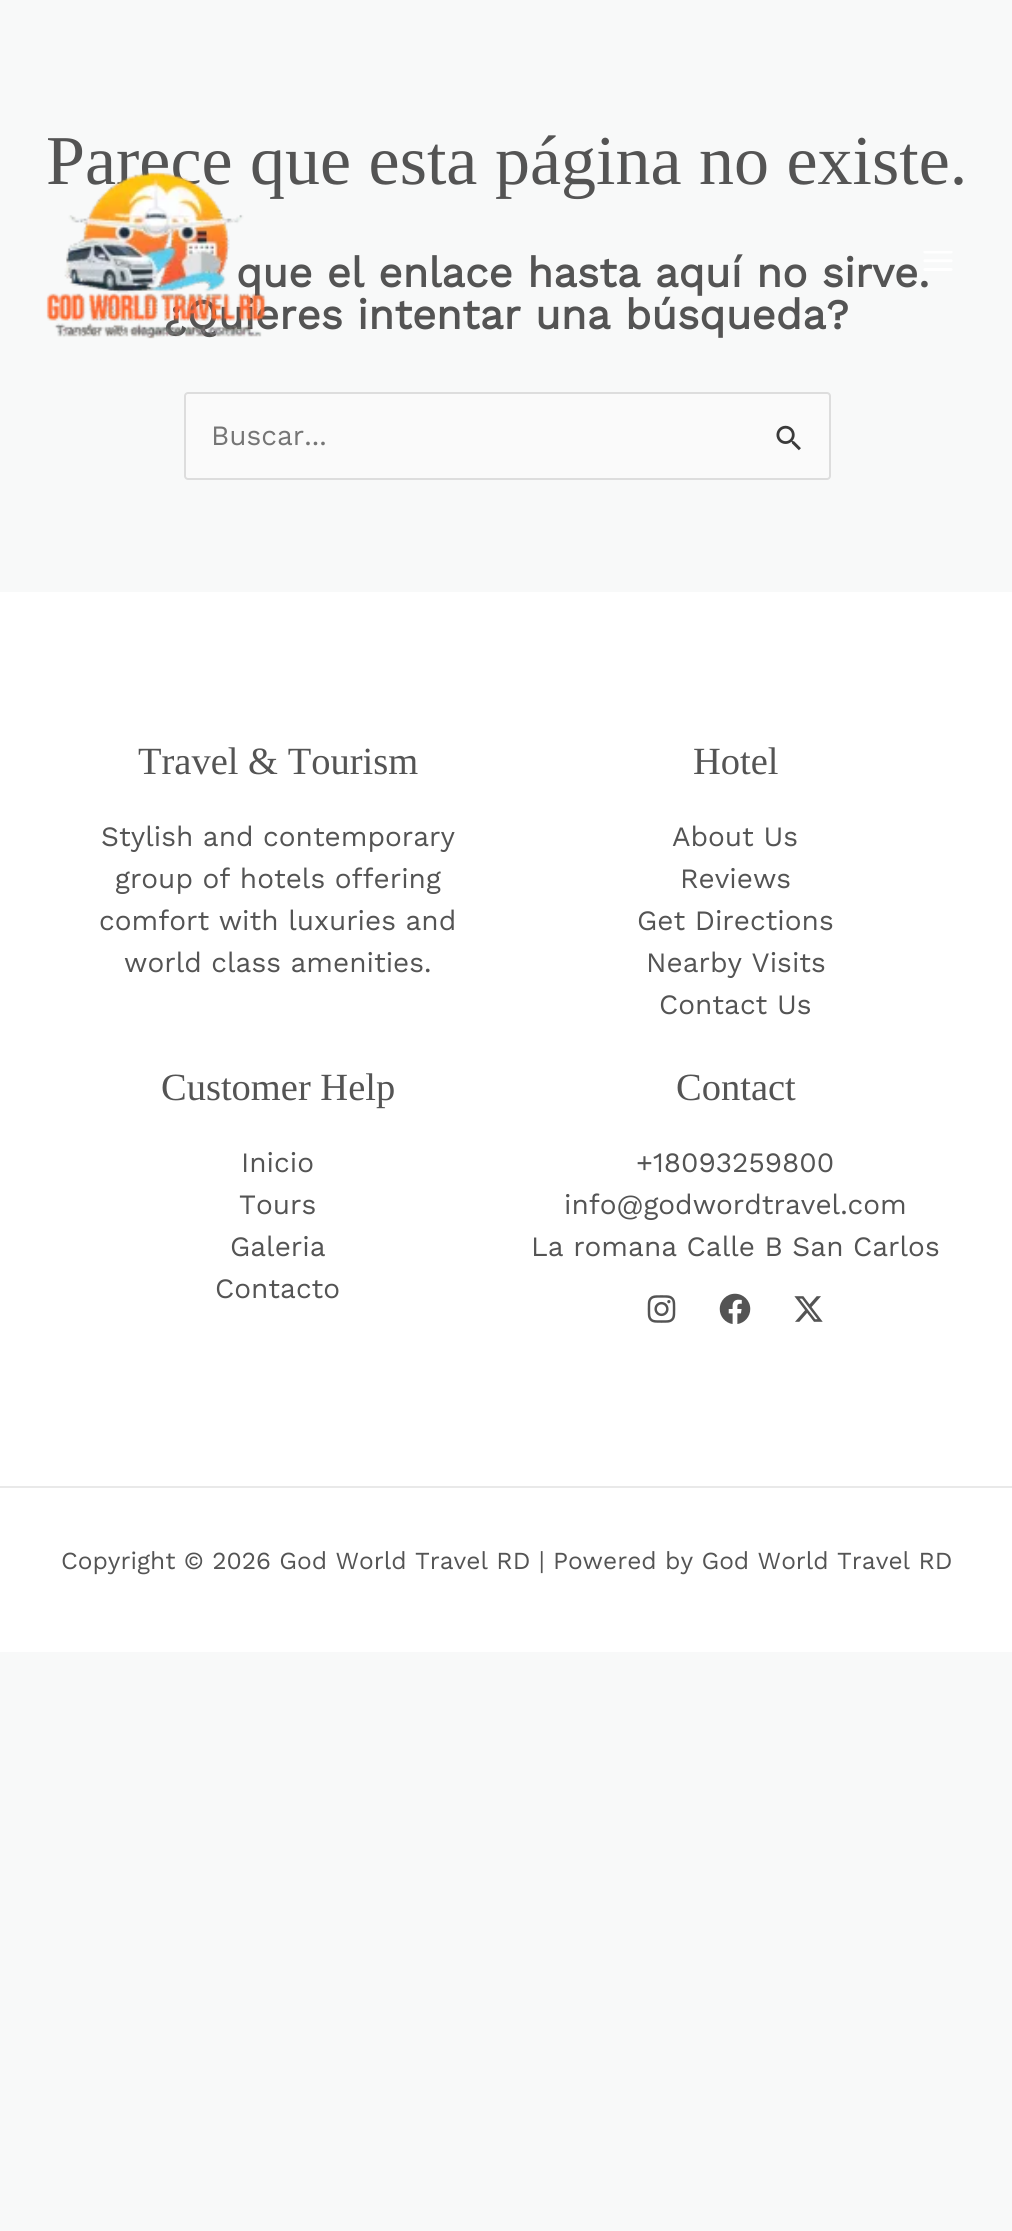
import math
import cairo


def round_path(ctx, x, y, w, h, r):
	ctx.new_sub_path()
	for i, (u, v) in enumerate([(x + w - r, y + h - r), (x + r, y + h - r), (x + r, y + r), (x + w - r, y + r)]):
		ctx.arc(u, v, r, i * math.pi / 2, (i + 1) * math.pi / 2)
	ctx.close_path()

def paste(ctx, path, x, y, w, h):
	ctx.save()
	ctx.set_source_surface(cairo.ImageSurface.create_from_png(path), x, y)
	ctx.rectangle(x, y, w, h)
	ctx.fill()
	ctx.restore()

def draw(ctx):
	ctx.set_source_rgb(0.969, 0.973, 0.976)
	ctx.paint()
	ctx.select_font_face('Liberation Serif')
	ctx.set_font_size(70)
	ctx.set_source_rgb(0.329, 0.329, 0.329)
	ctx.move_to(46, 184)
	ctx.show_text('Parece que esta página no existe.')
	ctx.select_font_face('Work Sans', cairo.FONT_SLANT_NORMAL, cairo.FONT_WEIGHT_BOLD)
	ctx.set_font_size(42)
	ctx.move_to(236, 287)
	ctx.show_text('que el enlace hasta aquí no sirve.')
	ctx.move_to(164, 329)
	ctx.show_text('¿Quieres intentar una búsqueda?')
	ctx.set_source_rgb(0.98, 0.98, 0.98)
	round_path(ctx, 185, 393, 645, 86, 3)
	ctx.fill_preserve()
	ctx.set_source_rgb(0.867, 0.867, 0.867)
	ctx.stroke()
	ctx.select_font_face('Work Sans')
	ctx.set_font_size(28)
	ctx.set_source_rgb(0.459, 0.459, 0.459)
	ctx.move_to(211, 445)
	ctx.show_text('Buscar...')
	paste(ctx, 'media/1.png', 776, 425, 25, 26)
	paste(ctx, 'media/2.png', 46, 172, 221, 167)
	paste(ctx, 'media/3.png', 923, 251, 30, 20)
	ctx.set_source_rgb(1, 1, 1)
	ctx.rectangle(0, 592, 1012, 1060)
	ctx.fill()
	ctx.select_font_face('Liberation Serif')
	ctx.set_font_size(38.5)
	ctx.set_source_rgb(0.329, 0.329, 0.329)
	ctx.move_to(138, 774)
	ctx.show_text('Travel & Tourism')
	ctx.select_font_face('Work Sans')
	ctx.set_font_size(28)
	for x, y, s in [
		(101, 846, 'Stylish and contemporary'),
		(115, 888, 'group of hotels offering'),
		(99, 930, 'comfort with luxuries and'),
		(124, 972, 'world class amenities.'),
	]:
		ctx.move_to(x, y)
		ctx.show_text(s)
	ctx.select_font_face('Liberation Serif')
	ctx.set_font_size(38.5)
	ctx.move_to(693, 774)
	ctx.show_text('Hotel')
	ctx.select_font_face('Work Sans')
	ctx.set_font_size(28)
	for x, y, s in [
		(672, 846, 'About Us'),
		(680, 888, 'Reviews'),
		(637, 930, 'Get Directions'),
		(646, 972, 'Nearby Visits'),
		(659, 1014, 'Contact Us'),
	]:
		ctx.move_to(x, y)
		ctx.show_text(s)
	ctx.select_font_face('Liberation Serif')
	ctx.set_font_size(38.5)
	ctx.move_to(161, 1100)
	ctx.show_text('Customer Help')
	ctx.select_font_face('Work Sans')
	ctx.set_font_size(28)
	for x, y, s in [
		(241, 1172, 'Inicio'),
		(239, 1214, 'Tours'),
		(230, 1256, 'Galeria'),
		(215, 1298, 'Contacto'),
	]:
		ctx.move_to(x, y)
		ctx.show_text(s)
	ctx.select_font_face('Liberation Serif')
	ctx.set_font_size(38.5)
	ctx.move_to(676, 1100)
	ctx.show_text('Contact')
	ctx.select_font_face('Work Sans')
	ctx.set_font_size(28)
	for x, y, s in [
		(636, 1172, '+18093259800'),
		(564, 1214, 'info@godwordtravel.com'),
		(531, 1256, 'La romana Calle B San Carlos'),
	]:
		ctx.move_to(x, y)
		ctx.show_text(s)
	paste(ctx, 'media/4.png', 647, 1295, 29, 28)
	paste(ctx, 'media/5.png', 719, 1293, 32, 31)
	paste(ctx, 'media/6.png', 794, 1296, 29, 26)
	ctx.set_source_rgb(0.914, 0.914, 0.914)
	ctx.rectangle(0, 1486, 1012, 2)
	ctx.fill()
	ctx.set_font_size(24.5)
	ctx.set_source_rgb(0.329, 0.329, 0.329)
	ctx.move_to(61, 1569)
	ctx.show_text('Copyright © 2026 God World Travel RD | Powered by God World Travel RD')


surface = cairo.ImageSurface(cairo.FORMAT_RGB24, 1012, 2231)
ctx = cairo.Context(surface)
options = cairo.FontOptions()
options.set_hint_metrics(cairo.HINT_METRICS_OFF)
options.set_hint_style(cairo.HINT_STYLE_NONE)
ctx.set_font_options(options)
ctx.set_miter_limit(4)
draw(ctx)
surface.write_to_png('image.png')
